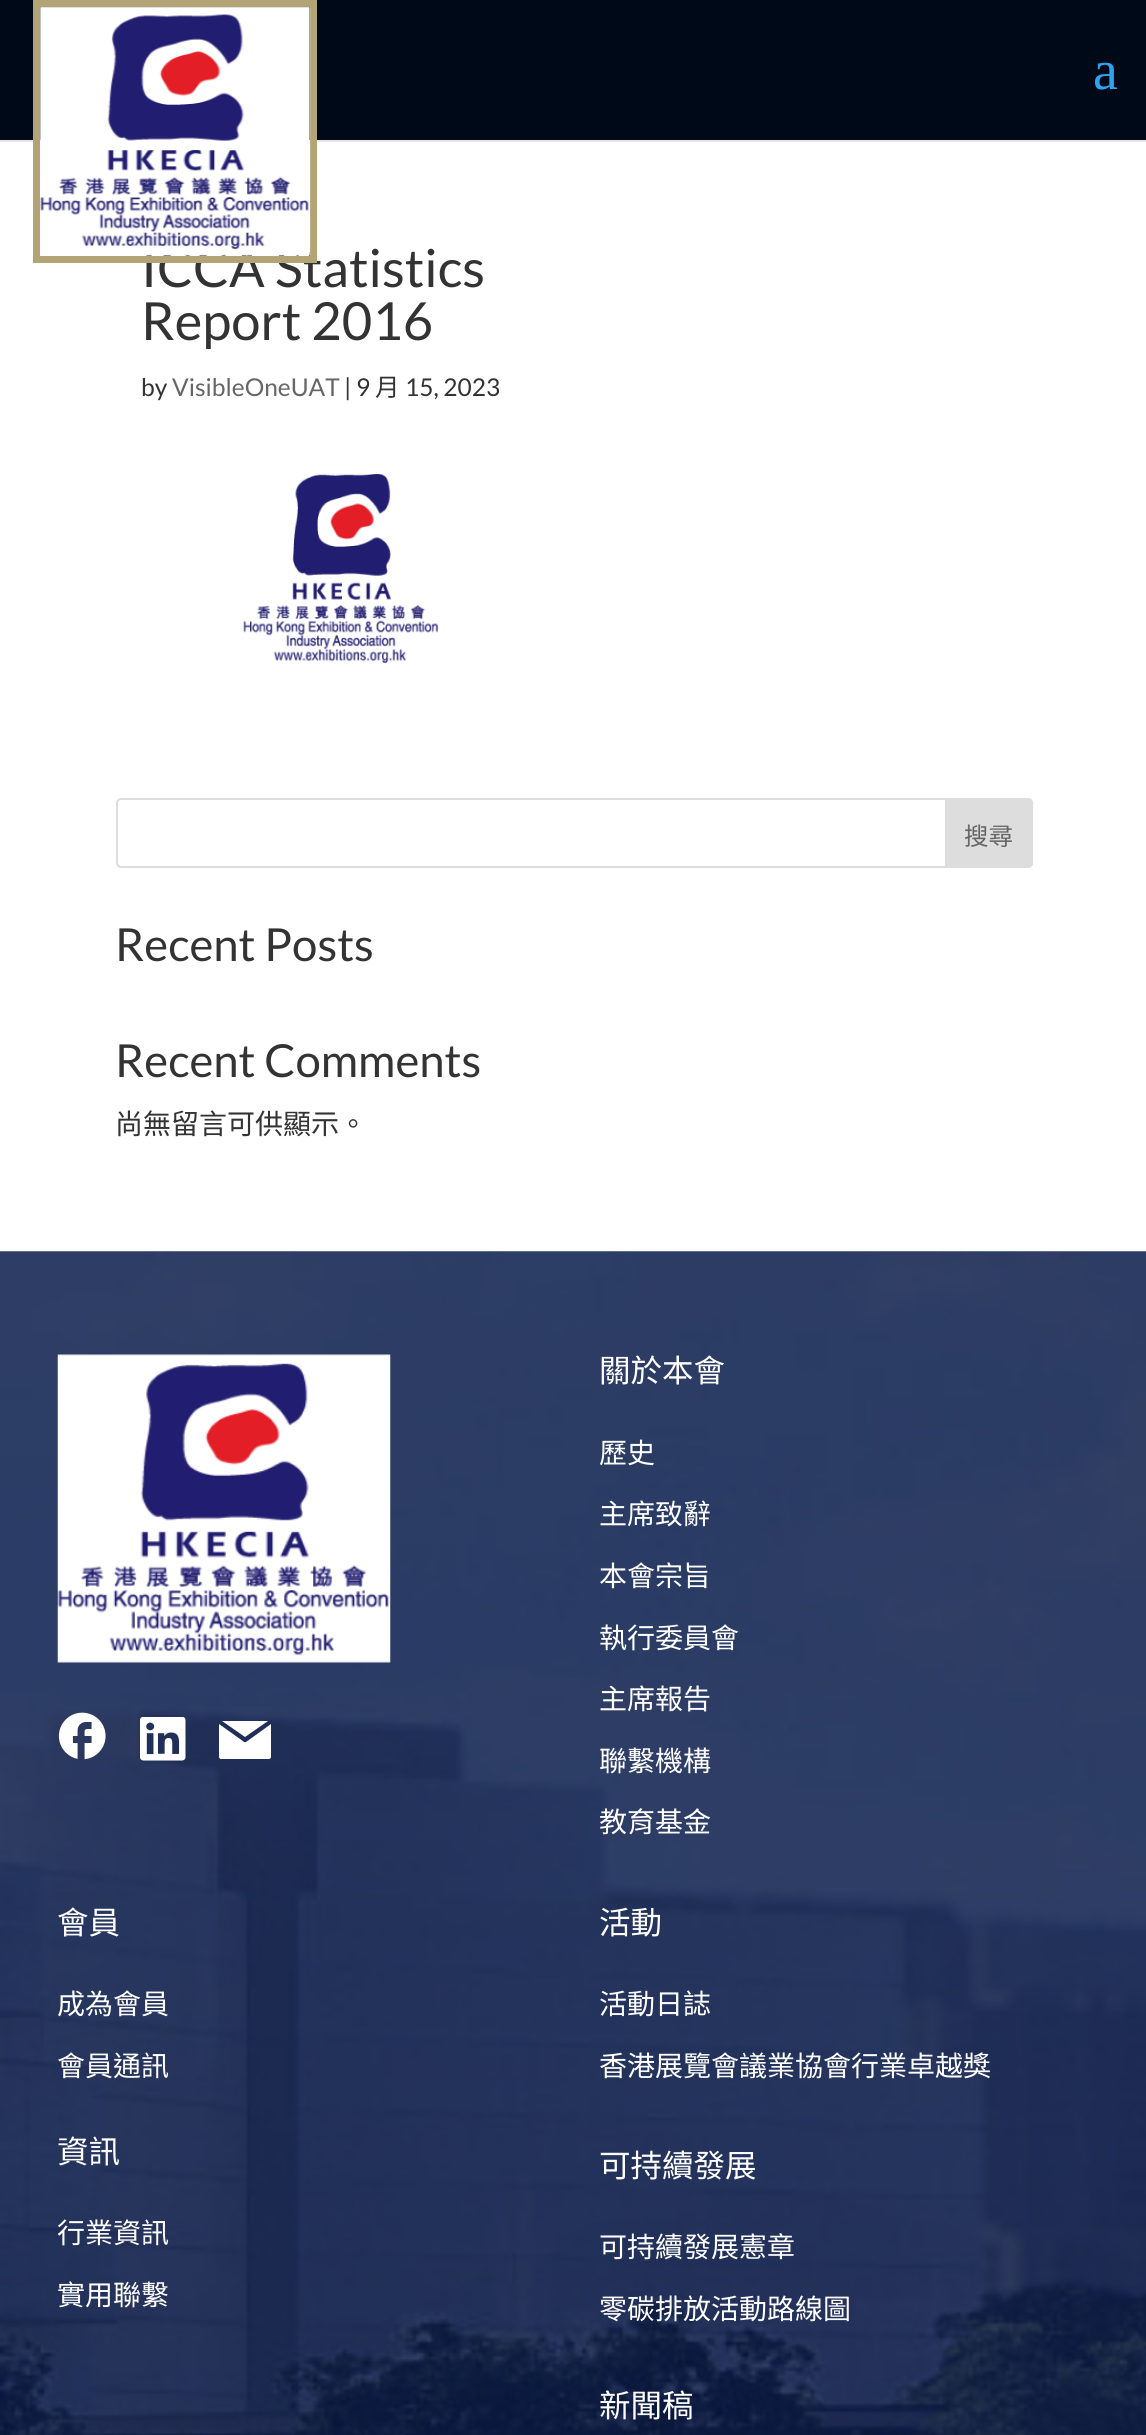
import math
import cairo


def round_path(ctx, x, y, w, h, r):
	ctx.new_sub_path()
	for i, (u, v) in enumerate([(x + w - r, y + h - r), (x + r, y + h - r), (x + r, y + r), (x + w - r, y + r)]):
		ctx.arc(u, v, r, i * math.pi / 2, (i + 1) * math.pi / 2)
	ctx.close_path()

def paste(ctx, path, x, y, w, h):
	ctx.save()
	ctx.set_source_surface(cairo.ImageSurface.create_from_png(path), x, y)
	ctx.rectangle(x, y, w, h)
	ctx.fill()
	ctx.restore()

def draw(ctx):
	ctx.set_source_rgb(1, 1, 1)
	ctx.paint()
	ctx.set_source_rgb(0.902, 0.902, 0.902)
	ctx.rectangle(0, 140, 1146, 2)
	ctx.fill()
	ctx.set_source_rgb(0, 0.039, 0.09)
	ctx.rectangle(0, 0, 1146, 140)
	ctx.fill()
	ctx.select_font_face('Lato')
	ctx.set_font_size(52.5)
	ctx.set_source_rgb(0.2, 0.2, 0.2)
	ctx.move_to(141, 287)
	ctx.show_text('ICCA Statistics')
	ctx.rectangle(36.5, 3.5, 277, 256)
	ctx.set_source_rgb(0.698, 0.643, 0.459)
	ctx.set_line_width(7)
	ctx.stroke()
	paste(ctx, 'media/1.png', 40, 7, 271, 249)
	ctx.select_font_face('Liberation Serif')
	ctx.set_font_size(56)
	ctx.set_source_rgb(0.18, 0.639, 0.949)
	ctx.move_to(1093, 89)
	ctx.show_text('a')
	ctx.select_font_face('Lato')
	ctx.set_font_size(52.5)
	ctx.set_source_rgb(0.2, 0.2, 0.2)
	ctx.move_to(141, 340)
	ctx.show_text('Report 2016')
	ctx.set_font_size(24.5)
	ctx.move_to(141, 396)
	ctx.show_text('by')
	ctx.set_source_rgb(0.4, 0.4, 0.4)
	ctx.move_to(172, 396)
	ctx.show_text('VisibleOneUAT')
	ctx.set_source_rgb(0.2, 0.2, 0.2)
	ctx.move_to(344, 396)
	ctx.show_text('| 9')
	ctx.select_font_face('Noto Sans CJK TC')
	ctx.move_to(375, 396)
	ctx.show_text('月')
	ctx.select_font_face('Lato')
	ctx.move_to(405, 396)
	ctx.show_text('15, 2023')
	paste(ctx, 'media/2.png', 243, 474, 196, 189)
	round_path(ctx, 117, 799, 915, 68, 4)
	ctx.set_source_rgb(0.867, 0.867, 0.867)
	ctx.set_line_width(2)
	ctx.stroke()
	ctx.new_path()
	ctx.move_to(946, 799)
	ctx.line_to(1028, 799)
	ctx.curve_to(1030, 799, 1032, 801, 1032, 803)
	ctx.line_to(1032, 863)
	ctx.curve_to(1032, 865, 1030, 867, 1028, 867)
	ctx.line_to(946, 867)
	ctx.close_path()
	ctx.fill_preserve()
	ctx.stroke()
	ctx.select_font_face('Noto Sans CJK TC')
	ctx.set_source_rgb(0.4, 0.4, 0.4)
	ctx.move_to(964, 845)
	ctx.show_text('搜尋')
	ctx.select_font_face('Lato')
	ctx.set_font_size(45.5)
	ctx.set_source_rgb(0.2, 0.2, 0.2)
	ctx.move_to(115, 961)
	ctx.show_text('Recent Posts')
	ctx.move_to(115, 1077)
	ctx.show_text('Recent Comments')
	ctx.select_font_face('Noto Sans CJK TC')
	ctx.set_font_size(28)
	ctx.move_to(115, 1134)
	ctx.show_text('尚無留言可供顯示。')
	paste(ctx, 'media/3.png', 0, 1251, 1146, 1184)
	paste(ctx, 'media/4.png', 57, 1354, 334, 309)
	paste(ctx, 'media/5.png', 58, 1712, 48, 48)
	paste(ctx, 'media/6.png', 140, 1717, 46, 44)
	ctx.set_source_rgb(1, 1, 1)
	ctx.new_path()
	ctx.move_to(246, 1742)
	ctx.curve_to(244, 1743, 242, 1740, 240, 1739)
	ctx.line_to(219, 1724)
	ctx.line_to(219, 1757)
	ctx.curve_to(219, 1758, 220, 1759, 221, 1759)
	ctx.line_to(269, 1759)
	ctx.curve_to(270, 1759, 271, 1758, 271, 1757)
	ctx.line_to(271, 1724)
	ctx.close_path()
	ctx.fill()
	ctx.new_path()
	ctx.move_to(245, 1737)
	ctx.line_to(268, 1721)
	ctx.line_to(222, 1721)
	ctx.close_path()
	ctx.fill()
	ctx.set_font_size(31.5)
	ctx.move_to(599, 1382)
	ctx.show_text('關於本會')
	ctx.set_font_size(28)
	for x, y, s in [
		(599, 1463, '歷史'),
		(599, 1524, '主席致辭'),
		(599, 1586, '本會宗旨'),
		(599, 1648, '執行委員會'),
		(599, 1709, '主席報告'),
		(599, 1771, '聯繫機構'),
		(599, 1832, '教育基金'),
	]:
		ctx.move_to(x, y)
		ctx.show_text(s)
	ctx.set_font_size(31.5)
	ctx.move_to(57, 1934)
	ctx.show_text('會員')
	ctx.set_font_size(28)
	ctx.move_to(57, 2014)
	ctx.show_text('成為會員')
	ctx.move_to(57, 2076)
	ctx.show_text('會員通訊')
	ctx.set_font_size(31.5)
	ctx.move_to(57, 2163)
	ctx.show_text('資訊')
	ctx.set_font_size(28)
	ctx.move_to(57, 2243)
	ctx.show_text('行業資訊')
	ctx.move_to(57, 2305)
	ctx.show_text('實用聯繫')
	ctx.set_font_size(31.5)
	ctx.move_to(599, 1934)
	ctx.show_text('活動')
	ctx.set_font_size(28)
	ctx.move_to(599, 2014)
	ctx.show_text('活動日誌')
	ctx.move_to(599, 2076)
	ctx.show_text('香港展覽會議業協會行業卓越獎')
	ctx.set_font_size(31.5)
	ctx.move_to(599, 2177)
	ctx.show_text('可持續發展')
	ctx.set_font_size(28)
	ctx.move_to(599, 2257)
	ctx.show_text('可持續發展憲章')
	ctx.move_to(599, 2319)
	ctx.show_text('零碳排放活動路線圖')
	ctx.set_font_size(31.5)
	ctx.move_to(599, 2417)
	ctx.show_text('新聞稿')


surface = cairo.ImageSurface(cairo.FORMAT_RGB24, 1146, 2435)
ctx = cairo.Context(surface)
options = cairo.FontOptions()
options.set_hint_metrics(cairo.HINT_METRICS_OFF)
options.set_hint_style(cairo.HINT_STYLE_NONE)
ctx.set_font_options(options)
ctx.set_miter_limit(4)
draw(ctx)
surface.write_to_png('image.png')
